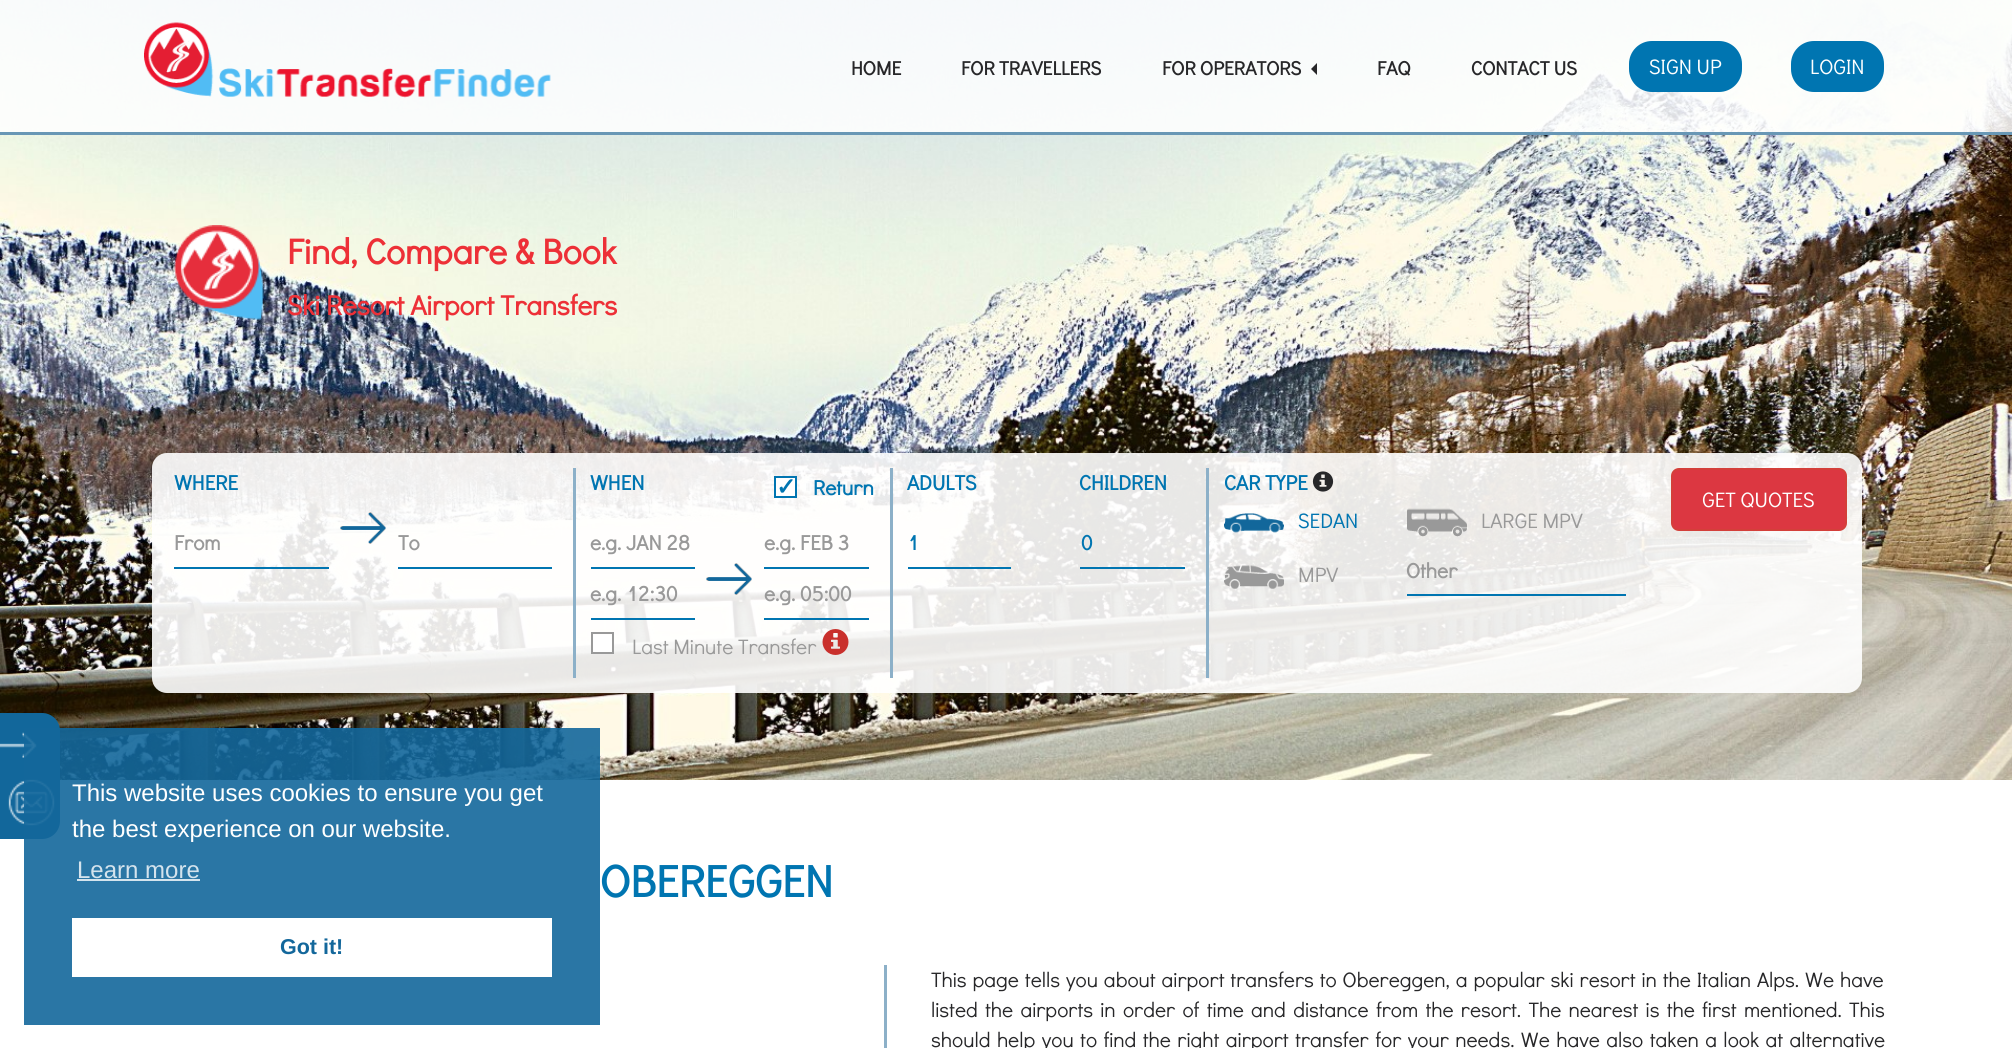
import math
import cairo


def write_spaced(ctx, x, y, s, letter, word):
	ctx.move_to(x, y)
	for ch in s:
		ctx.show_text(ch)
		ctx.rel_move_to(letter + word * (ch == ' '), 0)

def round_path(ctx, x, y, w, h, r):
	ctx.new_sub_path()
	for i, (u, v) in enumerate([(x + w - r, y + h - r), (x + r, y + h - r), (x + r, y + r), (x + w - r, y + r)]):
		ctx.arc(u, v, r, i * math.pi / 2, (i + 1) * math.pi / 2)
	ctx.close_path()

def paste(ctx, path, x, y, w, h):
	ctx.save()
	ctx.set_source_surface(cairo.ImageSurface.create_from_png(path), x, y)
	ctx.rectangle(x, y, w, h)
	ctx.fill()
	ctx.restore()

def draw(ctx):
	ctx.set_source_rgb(1, 1, 1)
	ctx.paint()
	paste(ctx, 'media/1.png', 0, 0, 2012, 780)
	ctx.set_source_rgba(1, 1, 1, 0.85)
	ctx.rectangle(0, 0, 2012, 132)
	ctx.fill()
	ctx.set_source_rgb(0.408, 0.592, 0.71)
	ctx.rectangle(0, 132, 2012, 3)
	ctx.fill()
	paste(ctx, 'media/2.png', 144, 22, 407, 76)
	ctx.select_font_face('Didact Gothic', cairo.FONT_SLANT_NORMAL, cairo.FONT_WEIGHT_BOLD)
	ctx.set_font_size(19.5)
	ctx.set_source_rgb(0.153, 0.153, 0.161)
	for x, y, s in [
		(851, 75, 'HOME'),
		(961, 75, 'FOR TRAVELLERS'),
		(1162, 75, 'FOR OPERATORS'),
	]:
		ctx.move_to(x, y)
		ctx.show_text(s)
	ctx.new_path()
	ctx.move_to(1317, 63)
	ctx.line_to(1317, 75)
	ctx.line_to(1311, 69)
	ctx.close_path()
	ctx.fill()
	ctx.move_to(1377, 75)
	ctx.show_text('FAQ')
	ctx.move_to(1471, 75)
	ctx.show_text('CONTACT US')
	ctx.set_source_rgb(0, 0.459, 0.694)
	round_path(ctx, 1630, 42, 111, 49, 22)
	ctx.fill_preserve()
	ctx.stroke()
	ctx.select_font_face('Didact Gothic')
	ctx.set_font_size(21)
	ctx.set_source_rgb(1, 1, 1)
	ctx.move_to(1649, 74)
	ctx.show_text('SIGN UP')
	ctx.set_source_rgb(0, 0.459, 0.694)
	round_path(ctx, 1792, 42, 91, 49, 22)
	ctx.fill_preserve()
	ctx.stroke()
	ctx.set_source_rgb(1, 1, 1)
	ctx.move_to(1810, 74)
	ctx.show_text('LOGIN')
	paste(ctx, 'media/3.png', 174, 225, 90, 95)
	ctx.select_font_face('Didact Gothic', cairo.FONT_SLANT_NORMAL, cairo.FONT_WEIGHT_BOLD)
	ctx.set_font_size(35.75)
	ctx.set_source_rgb(0.929, 0.188, 0.216)
	ctx.move_to(287, 264)
	ctx.show_text('Find, Compare & Book')
	ctx.set_font_size(27.8)
	ctx.move_to(287, 315)
	ctx.show_text('Ski Resort Airport Transfers')
	ctx.set_source_rgba(1, 1, 1, 0.9)
	round_path(ctx, 152, 453, 1710, 240, 15)
	ctx.fill()
	ctx.set_source_rgb(0.549, 0.69, 0.784)
	ctx.rectangle(573, 468, 3, 210)
	ctx.fill()
	ctx.set_font_size(21)
	ctx.set_source_rgb(0, 0.459, 0.694)
	ctx.move_to(174, 490)
	ctx.show_text('WHERE')
	ctx.rectangle(174, 567, 155, 2)
	ctx.fill()
	ctx.set_source_rgb(0.6, 0.6, 0.6)
	ctx.move_to(174, 550)
	ctx.show_text('From')
	paste(ctx, 'media/4.png', 340, 512, 46, 32)
	ctx.set_source_rgb(0, 0.459, 0.694)
	ctx.rectangle(398, 567, 154, 2)
	ctx.fill()
	ctx.set_source_rgb(0.6, 0.6, 0.6)
	ctx.move_to(398, 550)
	ctx.show_text('To')
	ctx.set_source_rgb(0.549, 0.69, 0.784)
	ctx.rectangle(890, 468, 3, 210)
	ctx.fill()
	ctx.set_source_rgb(0, 0.459, 0.694)
	ctx.move_to(590, 490)
	ctx.show_text('WHEN')
	ctx.set_source_rgb(1, 1, 1)
	ctx.rectangle(775, 477, 21, 20)
	ctx.fill_preserve()
	ctx.set_source_rgb(0, 0.459, 0.694)
	ctx.stroke()
	ctx.select_font_face('DejaVu Sans', cairo.FONT_SLANT_NORMAL, cairo.FONT_WEIGHT_BOLD)
	ctx.set_font_size(24)
	ctx.move_to(776, 495)
	ctx.show_text('✓')
	ctx.select_font_face('Didact Gothic', cairo.FONT_SLANT_NORMAL, cairo.FONT_WEIGHT_BOLD)
	ctx.set_font_size(21)
	ctx.move_to(813, 495)
	ctx.show_text('Return')
	ctx.rectangle(591, 567, 104, 2)
	ctx.fill()
	ctx.set_source_rgb(0.6, 0.6, 0.6)
	ctx.move_to(590, 550)
	ctx.show_text('e.g. JAN 28')
	ctx.set_source_rgb(0, 0.459, 0.694)
	ctx.rectangle(591, 618, 104, 2)
	ctx.fill()
	ctx.set_source_rgb(0.6, 0.6, 0.6)
	ctx.move_to(590, 601)
	ctx.show_text('e.g. 12:30')
	paste(ctx, 'media/5.png', 706, 563, 46, 32)
	ctx.set_source_rgb(0, 0.459, 0.694)
	ctx.rectangle(764, 567, 105, 2)
	ctx.fill()
	ctx.set_source_rgb(0.6, 0.6, 0.6)
	ctx.move_to(764, 550)
	ctx.show_text('e.g. FEB 3')
	ctx.set_source_rgb(0, 0.459, 0.694)
	ctx.rectangle(764, 618, 105, 2)
	ctx.fill()
	ctx.set_source_rgb(0.6, 0.6, 0.6)
	ctx.move_to(764, 601)
	ctx.show_text('e.g. 05:00')
	ctx.set_source_rgb(1, 1, 1)
	ctx.rectangle(593, 635, 19, 17)
	ctx.fill()
	ctx.rectangle(592, 633, 21, 20)
	ctx.set_source_rgb(0.6, 0.6, 0.6)
	ctx.stroke()
	ctx.select_font_face('Didact Gothic')
	ctx.move_to(632, 654)
	ctx.show_text('Last Minute Transfer')
	paste(ctx, 'media/6.png', 822, 629, 27, 26)
	ctx.set_source_rgb(0.549, 0.69, 0.784)
	ctx.rectangle(1206, 468, 3, 210)
	ctx.fill()
	ctx.select_font_face('Didact Gothic', cairo.FONT_SLANT_NORMAL, cairo.FONT_WEIGHT_BOLD)
	ctx.set_source_rgb(0, 0.459, 0.694)
	ctx.move_to(907, 490)
	ctx.show_text('ADULTS')
	ctx.move_to(1079, 490)
	ctx.show_text('CHILDREN')
	ctx.rectangle(908, 567, 103, 2)
	ctx.fill()
	ctx.move_to(907, 550)
	ctx.show_text('1')
	ctx.rectangle(1080, 567, 105, 2)
	ctx.fill()
	ctx.move_to(1081, 550)
	ctx.show_text('0')
	ctx.move_to(1224, 490)
	ctx.show_text('CAR TYPE')
	paste(ctx, 'media/7.png', 1312, 471, 22, 21)
	ctx.set_source_rgb(0.863, 0.216, 0.255)
	round_path(ctx, 1672, 469, 174, 61, 7)
	ctx.fill_preserve()
	ctx.set_source_rgb(0.831, 0.247, 0.227)
	ctx.stroke()
	ctx.select_font_face('Didact Gothic')
	ctx.set_source_rgb(1, 1, 1)
	ctx.move_to(1702, 507)
	ctx.show_text('GET QUOTES')
	paste(ctx, 'media/8.png', 1224, 513, 60, 20)
	ctx.set_source_rgb(0, 0.459, 0.694)
	ctx.move_to(1298, 528)
	ctx.show_text('SEDAN')
	paste(ctx, 'media/9.png', 1407, 508, 60, 29)
	ctx.set_source_rgb(0.6, 0.6, 0.6)
	ctx.move_to(1481, 528)
	ctx.show_text('LARGE MPV')
	paste(ctx, 'media/10.png', 1224, 565, 60, 24)
	ctx.move_to(1298, 582)
	ctx.show_text('MPV')
	ctx.set_source_rgb(0, 0.459, 0.694)
	ctx.rectangle(1407, 594, 219, 2)
	ctx.fill()
	ctx.select_font_face('Didact Gothic', cairo.FONT_SLANT_NORMAL, cairo.FONT_WEIGHT_BOLD)
	ctx.set_source_rgb(0.6, 0.6, 0.6)
	ctx.move_to(1406, 578)
	ctx.show_text('Other')
	ctx.set_source_rgb(0.071, 0.404, 0.608)
	ctx.new_path()
	ctx.move_to(0, 713)
	ctx.line_to(42, 713)
	ctx.curve_to(52, 713, 60, 721, 60, 731)
	ctx.line_to(60, 821)
	ctx.curve_to(60, 831, 52, 839, 42, 839)
	ctx.line_to(0, 839)
	ctx.close_path()
	ctx.fill()
	paste(ctx, 'media/11.png', 0, 732, 37, 26)
	paste(ctx, 'media/12.png', 8, 779, 47, 47)
	ctx.set_source_rgba(0.078, 0.404, 0.608, 0.9)
	ctx.rectangle(24, 728, 576, 297)
	ctx.fill()
	ctx.select_font_face('Liberation Sans')
	ctx.set_font_size(24)
	ctx.set_source_rgb(1, 1, 1)
	ctx.move_to(72, 801)
	ctx.show_text('This website uses cookies to ensure you get')
	ctx.move_to(72, 837)
	ctx.show_text('the best experience on our website.')
	ctx.set_source_rgb(0.831, 0.89, 0.929)
	ctx.move_to(77, 878)
	ctx.show_text('Learn more')
	ctx.set_source_rgba(1, 1, 1, 0.8)
	ctx.rectangle(77, 879, 123, 2)
	ctx.fill()
	ctx.set_source_rgb(1, 1, 1)
	ctx.rectangle(72, 918, 480, 59)
	ctx.fill()
	ctx.select_font_face('Liberation Sans', cairo.FONT_SLANT_NORMAL, cairo.FONT_WEIGHT_BOLD)
	ctx.set_font_size(21.5)
	ctx.set_source_rgb(0.078, 0.404, 0.608)
	ctx.move_to(280, 954)
	ctx.show_text('Got it!')
	ctx.select_font_face('Didact Gothic', cairo.FONT_SLANT_NORMAL, cairo.FONT_WEIGHT_BOLD)
	ctx.set_font_size(45)
	ctx.set_source_rgb(0, 0.459, 0.694)
	ctx.move_to(600, 897)
	ctx.show_text('OBEREGGEN')
	ctx.set_source_rgb(0.549, 0.69, 0.784)
	ctx.rectangle(884, 965, 3, 83)
	ctx.fill()
	ctx.select_font_face('Didact Gothic')
	ctx.set_font_size(21)
	ctx.set_source_rgb(0.153, 0.153, 0.161)
	write_spaced(ctx, 931, 987, 'This page tells you about airport transfers to Obereggen, a popular ski resort in the Italian Alps. We have', 0, 1.25)
	write_spaced(ctx, 931, 1017, 'listed the airports in order of time and distance from the resort. The nearest is the first mentioned. This', 0, 2.6)
	write_spaced(ctx, 931, 1047, 'should help you to find the right airport transfer for your needs. We have also taken a look at alternative', 0, 1.75)


surface = cairo.ImageSurface(cairo.FORMAT_RGB24, 2012, 1048)
ctx = cairo.Context(surface)
options = cairo.FontOptions()
options.set_hint_metrics(cairo.HINT_METRICS_OFF)
options.set_hint_style(cairo.HINT_STYLE_NONE)
ctx.set_font_options(options)
ctx.set_miter_limit(4)
draw(ctx)
surface.write_to_png('image.png')
